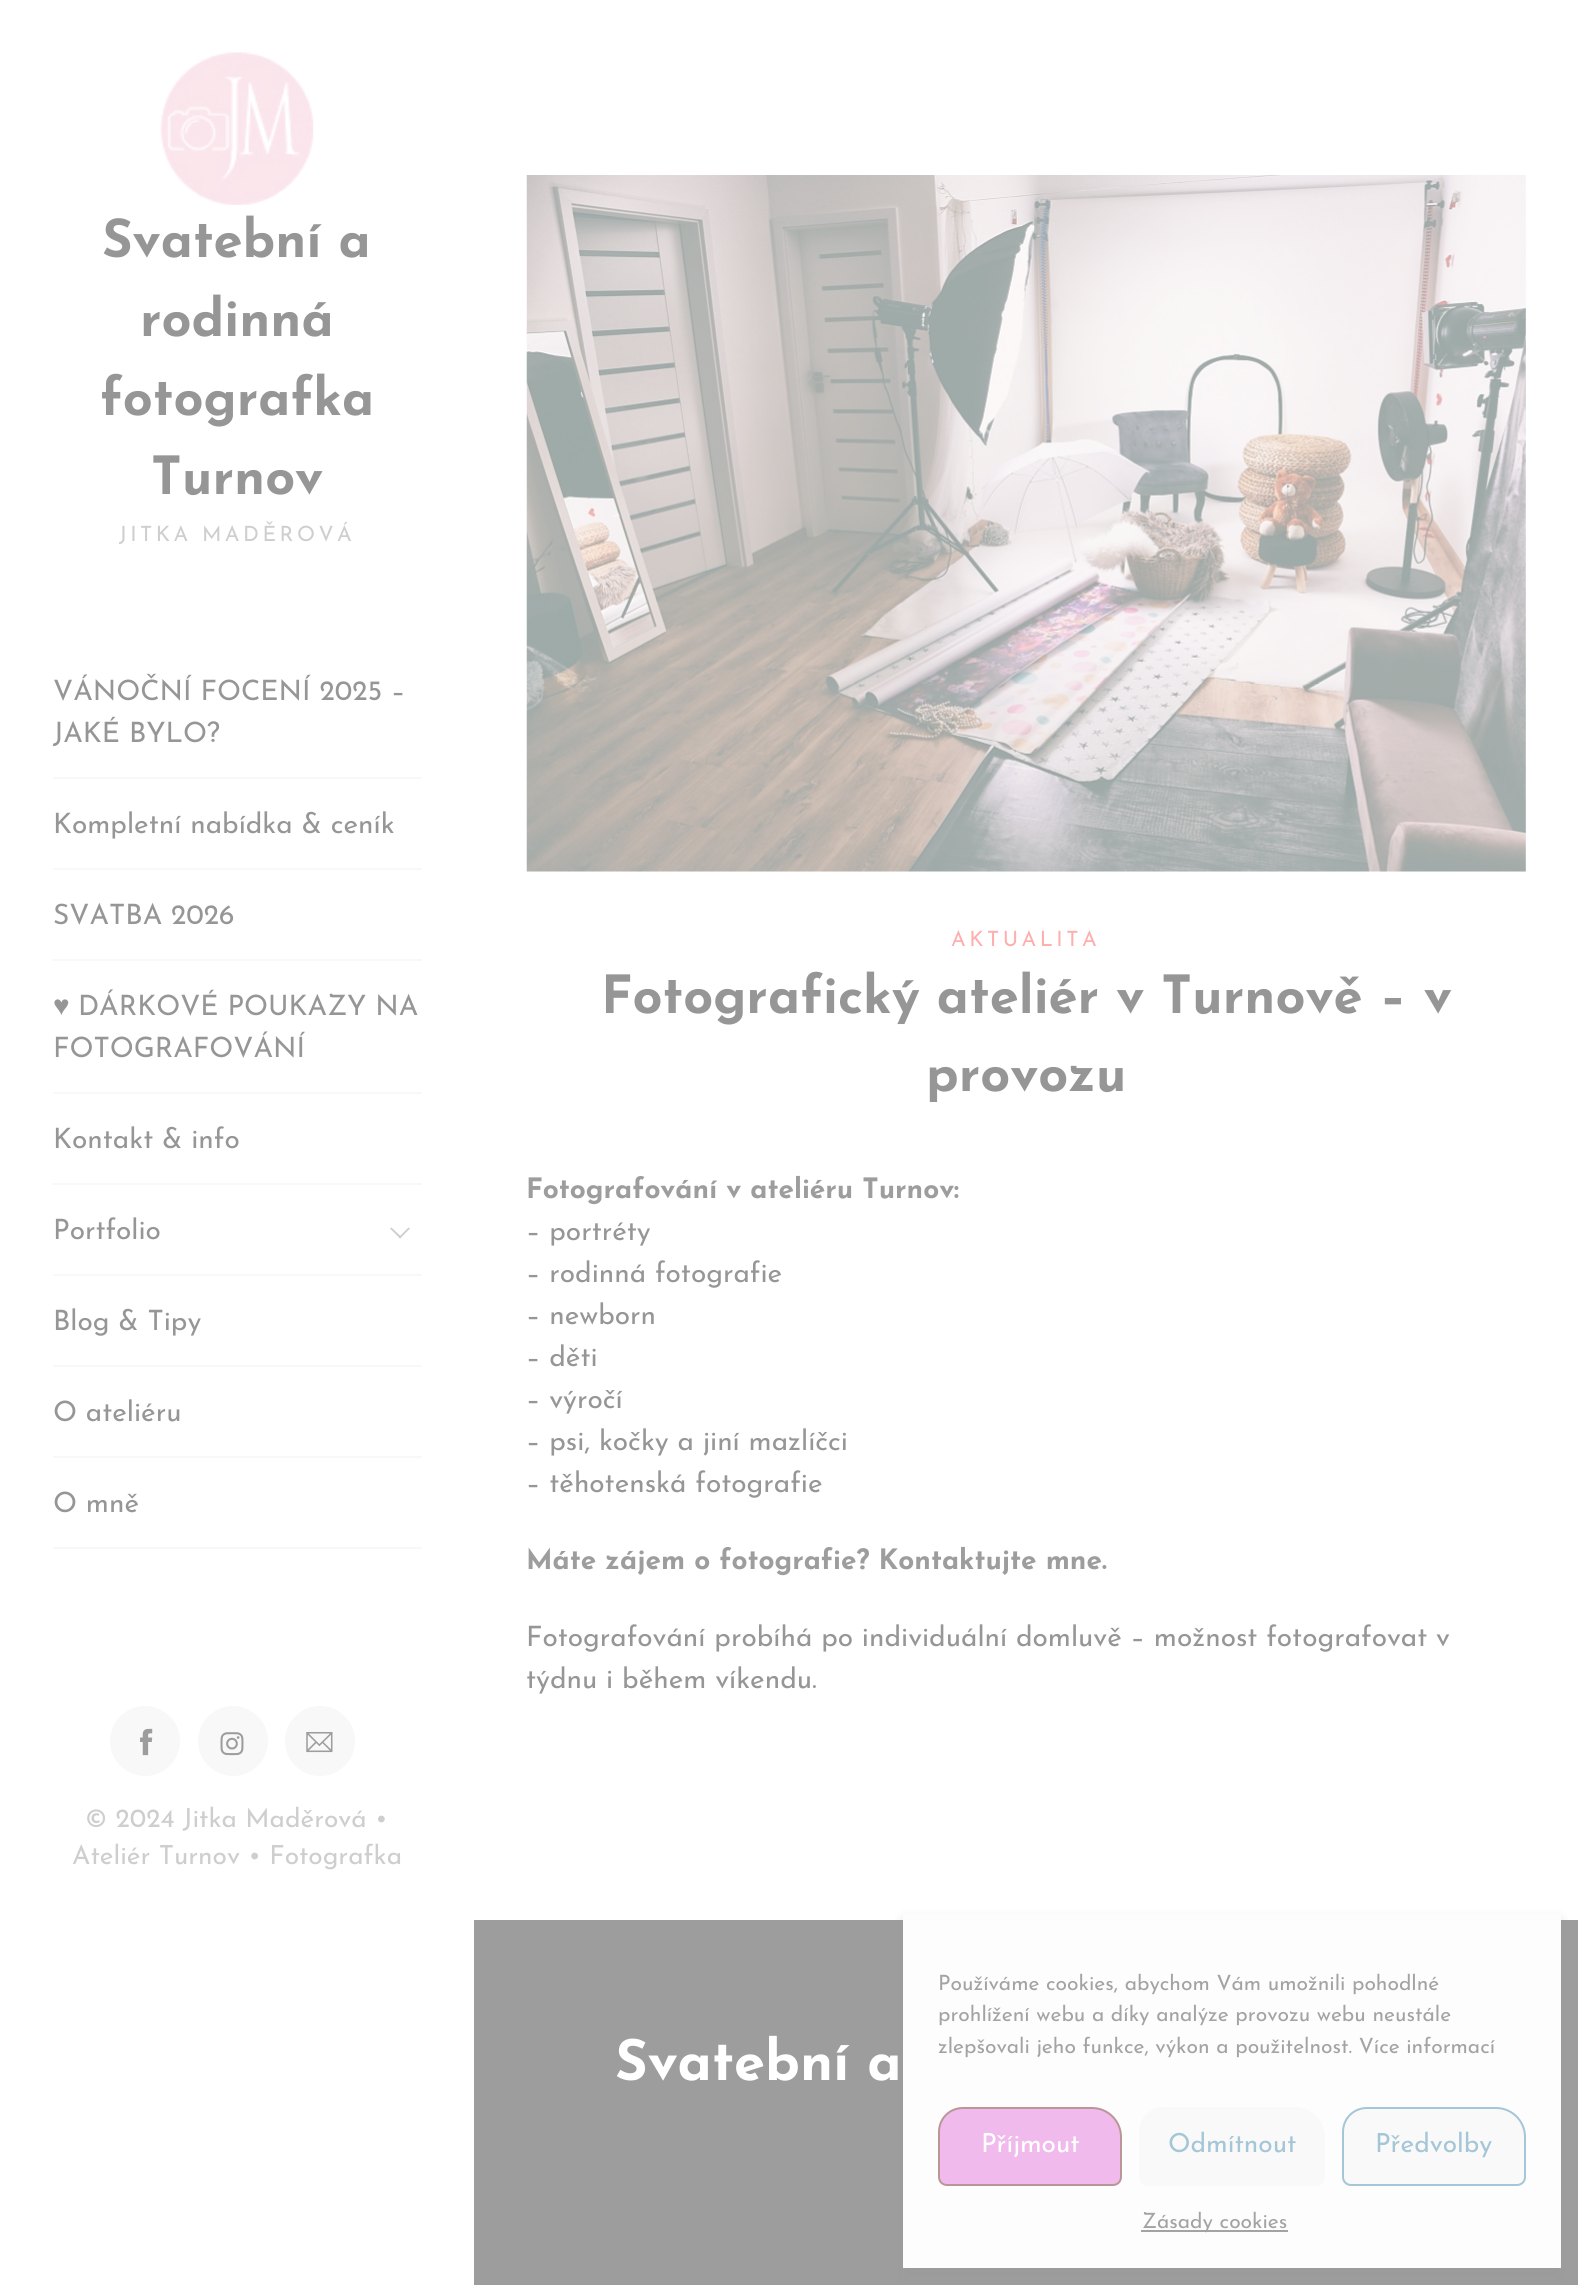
import math
import cairo


def write_spaced(ctx, x, y, s, letter, word):
	ctx.move_to(x, y)
	for ch in s:
		ctx.show_text(ch)
		ctx.rel_move_to(letter + word * (ch == ' '), 0)

def round_path(ctx, x, y, w, h, r):
	ctx.new_sub_path()
	for i, (u, v) in enumerate([(x + w - r, y + h - r), (x + r, y + h - r), (x + r, y + r), (x + w - r, y + r)]):
		ctx.arc(u, v, r, i * math.pi / 2, (i + 1) * math.pi / 2)
	ctx.close_path()

def blur_box(ctx, x, y, w, h, r, blur, alpha):
	ctx.push_group_with_content(cairo.CONTENT_ALPHA)
	ctx.set_operator(cairo.OPERATOR_SOURCE)
	for i in range(15, -16, -2):
		e = blur * i / 6
		if min(w, h) + 2 * e > 0:
			ctx.set_source_rgba(0, 0, 0, alpha * math.erfc((i - 1) / 8.5) / 2)
			round_path(ctx, x - e, y - e, w + 2 * e, h + 2 * e, max(0, min(r + e + blur * .6, min(w, h) / 2 + e)))
			ctx.fill()
	ctx.mask(ctx.pop_group())

def paste(ctx, path, x, y, w, h):
	ctx.save()
	ctx.set_source_surface(cairo.ImageSurface.create_from_png(path), x, y)
	ctx.rectangle(x, y, w, h)
	ctx.fill()
	ctx.restore()

def draw(ctx):
	ctx.set_source_rgb(1, 1, 1)
	ctx.paint()
	paste(ctx, 'media/1.png', 160, 52, 154, 153)
	ctx.select_font_face('Josefin Sans', cairo.FONT_SLANT_NORMAL, cairo.FONT_WEIGHT_BOLD)
	ctx.set_font_size(52.5)
	ctx.set_source_rgb(0.588, 0.588, 0.588)
	for x, y, s in [
		(102, 257, 'Svatební a'),
		(140, 336, 'rodinná'),
		(100, 415, 'fotografka'),
		(151, 494, 'Turnov'),
	]:
		ctx.move_to(x, y)
		ctx.show_text(s)
	ctx.select_font_face('Josefin Sans')
	ctx.set_font_size(21)
	ctx.set_source_rgb(0.808, 0.808, 0.808)
	write_spaced(ctx, 119, 541, 'JITKA MADĚROVÁ', 3.5, 0)
	ctx.set_source_rgb(0.969, 0.969, 0.969)
	ctx.rectangle(53, 777, 369, 2)
	ctx.fill()
	ctx.set_font_size(28)
	ctx.set_source_rgb(0.588, 0.588, 0.588)
	ctx.move_to(53, 700)
	ctx.show_text('VÁNOČNÍ FOCENÍ 2025 –')
	ctx.move_to(53, 742)
	ctx.show_text('JAKÉ BYLO?')
	ctx.set_source_rgb(0.969, 0.969, 0.969)
	ctx.rectangle(53, 868, 369, 2)
	ctx.fill()
	ctx.set_source_rgb(0.588, 0.588, 0.588)
	ctx.move_to(53, 833)
	ctx.show_text('Kompletní nabídka & ceník')
	ctx.set_source_rgb(0.969, 0.969, 0.969)
	ctx.rectangle(53, 959, 369, 2)
	ctx.fill()
	ctx.set_source_rgb(0.588, 0.588, 0.588)
	ctx.move_to(53, 924)
	ctx.show_text('SVATBA 2026')
	ctx.set_source_rgb(0.969, 0.969, 0.969)
	ctx.rectangle(53, 1092, 369, 2)
	ctx.fill()
	ctx.select_font_face('Liberation Sans')
	ctx.set_source_rgb(0.588, 0.588, 0.588)
	ctx.move_to(53, 1015)
	ctx.show_text('♥')
	ctx.select_font_face('Josefin Sans')
	ctx.move_to(78, 1015)
	ctx.show_text('DÁRKOVÉ POUKAZY NA')
	ctx.move_to(53, 1057)
	ctx.show_text('FOTOGRAFOVÁNÍ')
	ctx.set_source_rgb(0.969, 0.969, 0.969)
	ctx.rectangle(53, 1183, 369, 2)
	ctx.fill()
	ctx.set_source_rgb(0.588, 0.588, 0.588)
	ctx.move_to(53, 1148)
	ctx.show_text('Kontakt & info')
	ctx.set_source_rgb(0.969, 0.969, 0.969)
	ctx.rectangle(53, 1274, 369, 2)
	ctx.fill()
	ctx.set_source_rgb(0.588, 0.588, 0.588)
	ctx.move_to(53, 1239)
	ctx.show_text('Portfolio')
	ctx.set_source_rgb(0.808, 0.808, 0.808)
	ctx.new_path()
	ctx.move_to(400, 1238.5)
	ctx.line_to(390, 1228.5)
	ctx.line_to(391.5, 1227.5)
	ctx.line_to(401.5, 1237)
	ctx.close_path()
	ctx.fill()
	ctx.new_path()
	ctx.move_to(400, 1238.5)
	ctx.line_to(399, 1237)
	ctx.line_to(408.5, 1227.5)
	ctx.line_to(410, 1228.5)
	ctx.close_path()
	ctx.fill()
	ctx.set_source_rgb(0.969, 0.969, 0.969)
	ctx.rectangle(53, 1365, 369, 2)
	ctx.fill()
	ctx.set_source_rgb(0.588, 0.588, 0.588)
	ctx.move_to(53, 1330)
	ctx.show_text('Blog & Tipy')
	ctx.set_source_rgb(0.969, 0.969, 0.969)
	ctx.rectangle(53, 1456, 369, 2)
	ctx.fill()
	ctx.set_source_rgb(0.588, 0.588, 0.588)
	ctx.move_to(53, 1421)
	ctx.show_text('O ateliéru')
	ctx.set_source_rgb(0.969, 0.969, 0.969)
	ctx.rectangle(53, 1547, 369, 2)
	ctx.fill()
	ctx.set_source_rgb(0.588, 0.588, 0.588)
	ctx.move_to(53, 1512)
	ctx.show_text('O mně')
	ctx.set_source_rgb(0.969, 0.969, 0.969)
	ctx.new_path()
	ctx.arc(145, 1741, 35, 0, 2 * math.pi)
	ctx.fill()
	paste(ctx, 'media/2.png', 140, 1728, 13, 28)
	ctx.arc(233, 1741, 35, 0, 2 * math.pi)
	ctx.fill()
	paste(ctx, 'media/3.png', 220, 1732, 24, 24)
	ctx.arc(320, 1741, 35, 0, 2 * math.pi)
	ctx.fill()
	paste(ctx, 'media/4.png', 306, 1732, 27, 21)
	ctx.set_font_size(26.25)
	ctx.set_source_rgb(0.808, 0.808, 0.808)
	ctx.move_to(85, 1827)
	ctx.show_text('© 2024 Jitka Maděrová •')
	ctx.move_to(72, 1864)
	ctx.show_text('Ateliér Turnov • Fotografka')
	paste(ctx, 'media/5.png', 526, 175, 1000, 697)
	ctx.set_font_size(21)
	ctx.set_source_rgb(1, 0.682, 0.682)
	write_spaced(ctx, 951, 946, 'AKTUALITA', 3.5, 0)
	ctx.select_font_face('Josefin Sans', cairo.FONT_SLANT_NORMAL, cairo.FONT_WEIGHT_BOLD)
	ctx.set_font_size(52.5)
	ctx.set_source_rgb(0.588, 0.588, 0.588)
	ctx.move_to(601, 1013)
	ctx.show_text('Fotografický ateliér v Turnově – v')
	ctx.move_to(926, 1091)
	ctx.show_text('provozu')
	ctx.set_font_size(28)
	ctx.set_source_rgb(0.616, 0.616, 0.616)
	ctx.move_to(526, 1198)
	ctx.show_text('Fotografování v ateliéru Turnov:')
	ctx.select_font_face('Josefin Sans')
	ctx.set_source_rgb(0.588, 0.588, 0.588)
	for x, y, s in [
		(526, 1240, '– portréty'),
		(526, 1282, '– rodinná fotografie'),
		(526, 1324, '– newborn'),
		(526, 1366, '– děti'),
		(526, 1408, '– výročí'),
		(526, 1450, '– psi, kočky a jiní mazlíčci'),
		(526, 1492, '– těhotenská fotografie'),
	]:
		ctx.move_to(x, y)
		ctx.show_text(s)
	ctx.select_font_face('Josefin Sans', cairo.FONT_SLANT_NORMAL, cairo.FONT_WEIGHT_BOLD)
	ctx.set_source_rgb(0.616, 0.616, 0.616)
	ctx.move_to(526, 1569)
	ctx.show_text('Máte zájem o fotografie? Kontaktujte mne.')
	ctx.select_font_face('Josefin Sans')
	ctx.set_source_rgb(0.588, 0.588, 0.588)
	ctx.move_to(526, 1646)
	ctx.show_text('Fotografování probíhá po individuální domluvě – možnost fotografovat v')
	ctx.move_to(526, 1688)
	ctx.show_text('týdnu i během víkendu.')
	ctx.set_source_rgb(0.616, 0.616, 0.616)
	ctx.rectangle(474, 1920, 1104, 365)
	ctx.fill()
	ctx.select_font_face('Josefin Sans', cairo.FONT_SLANT_NORMAL, cairo.FONT_WEIGHT_BOLD)
	ctx.set_font_size(56)
	ctx.set_source_rgb(1, 1, 1)
	ctx.move_to(615, 2080)
	ctx.show_text('Svatební a')
	ctx.set_source_rgb(0.588, 0.588, 0.588)
	blur_box(ctx, 903, 1918, 658, 361, 0, 5, 0.23)
	ctx.set_source_rgb(0.992, 0.992, 0.992)
	ctx.rectangle(903, 1914, 658, 354)
	ctx.fill()
	ctx.select_font_face('Josefin Sans')
	ctx.set_font_size(21)
	ctx.set_source_rgb(0.631, 0.639, 0.647)
	for x, y, s in [
		(938, 1990, 'Používáme cookies, abychom Vám umožnili pohodlné'),
		(938, 2021, 'prohlížení webu a díky analýze provozu webu neustále'),
		(938, 2053, 'zlepšovali jeho funkce, výkon a použitelnost. Více informací'),
	]:
		ctx.move_to(x, y)
		ctx.show_text(s)
	ctx.set_source_rgb(0.941, 0.729, 0.929)
	ctx.new_path()
	ctx.move_to(963, 2108)
	ctx.line_to(1092, 2108)
	ctx.curve_to(1108, 2108, 1121, 2121, 1121, 2137)
	ctx.line_to(1121, 2177)
	ctx.curve_to(1121, 2181.5, 1117.5, 2185, 1113, 2185)
	ctx.line_to(947, 2185)
	ctx.curve_to(942.5, 2185, 939, 2181.5, 939, 2177)
	ctx.line_to(939, 2132)
	ctx.curve_to(939, 2118.5, 949.5, 2108, 963, 2108)
	ctx.close_path()
	ctx.fill_preserve()
	ctx.set_source_rgb(0.733, 0.588, 0.588)
	ctx.stroke()
	ctx.set_font_size(26.25)
	ctx.set_source_rgb(1, 1, 1)
	ctx.move_to(981, 2152)
	ctx.show_text('Příjmout')
	ctx.set_source_rgb(0.976, 0.976, 0.976)
	ctx.new_path()
	ctx.move_to(1164, 2107)
	ctx.line_to(1295, 2107)
	ctx.curve_to(1311.5, 2107, 1325, 2120.5, 1325, 2137)
	ctx.line_to(1325, 2177)
	ctx.curve_to(1325, 2182, 1321, 2186, 1316, 2186)
	ctx.line_to(1148, 2186)
	ctx.curve_to(1143, 2186, 1139, 2182, 1139, 2177)
	ctx.line_to(1139, 2132)
	ctx.curve_to(1139, 2118, 1150, 2107, 1164, 2107)
	ctx.close_path()
	ctx.fill()
	ctx.set_source_rgb(0.643, 0.776, 0.839)
	ctx.move_to(1168, 2152)
	ctx.show_text('Odmítnout')
	ctx.set_source_rgb(0.976, 0.976, 0.976)
	ctx.new_path()
	ctx.move_to(1367, 2108)
	ctx.line_to(1496, 2108)
	ctx.curve_to(1512, 2108, 1525, 2121, 1525, 2137)
	ctx.line_to(1525, 2177)
	ctx.curve_to(1525, 2181.5, 1521.5, 2185, 1517, 2185)
	ctx.line_to(1351, 2185)
	ctx.curve_to(1346.5, 2185, 1343, 2181.5, 1343, 2177)
	ctx.line_to(1343, 2132)
	ctx.curve_to(1343, 2118.5, 1353.5, 2108, 1367, 2108)
	ctx.close_path()
	ctx.fill_preserve()
	ctx.set_source_rgb(0.643, 0.776, 0.839)
	ctx.stroke()
	ctx.move_to(1375, 2152)
	ctx.show_text('Předvolby')
	ctx.set_source_rgb(0.631, 0.639, 0.647)
	ctx.rectangle(1141, 2230, 147, 2)
	ctx.fill()
	ctx.set_font_size(21)
	ctx.move_to(1142, 2228)
	ctx.show_text('Zásady cookies')


surface = cairo.ImageSurface(cairo.FORMAT_RGB24, 1578, 2285)
ctx = cairo.Context(surface)
options = cairo.FontOptions()
options.set_hint_metrics(cairo.HINT_METRICS_OFF)
options.set_hint_style(cairo.HINT_STYLE_NONE)
ctx.set_font_options(options)
ctx.set_miter_limit(4)
draw(ctx)
surface.write_to_png('image.png')
